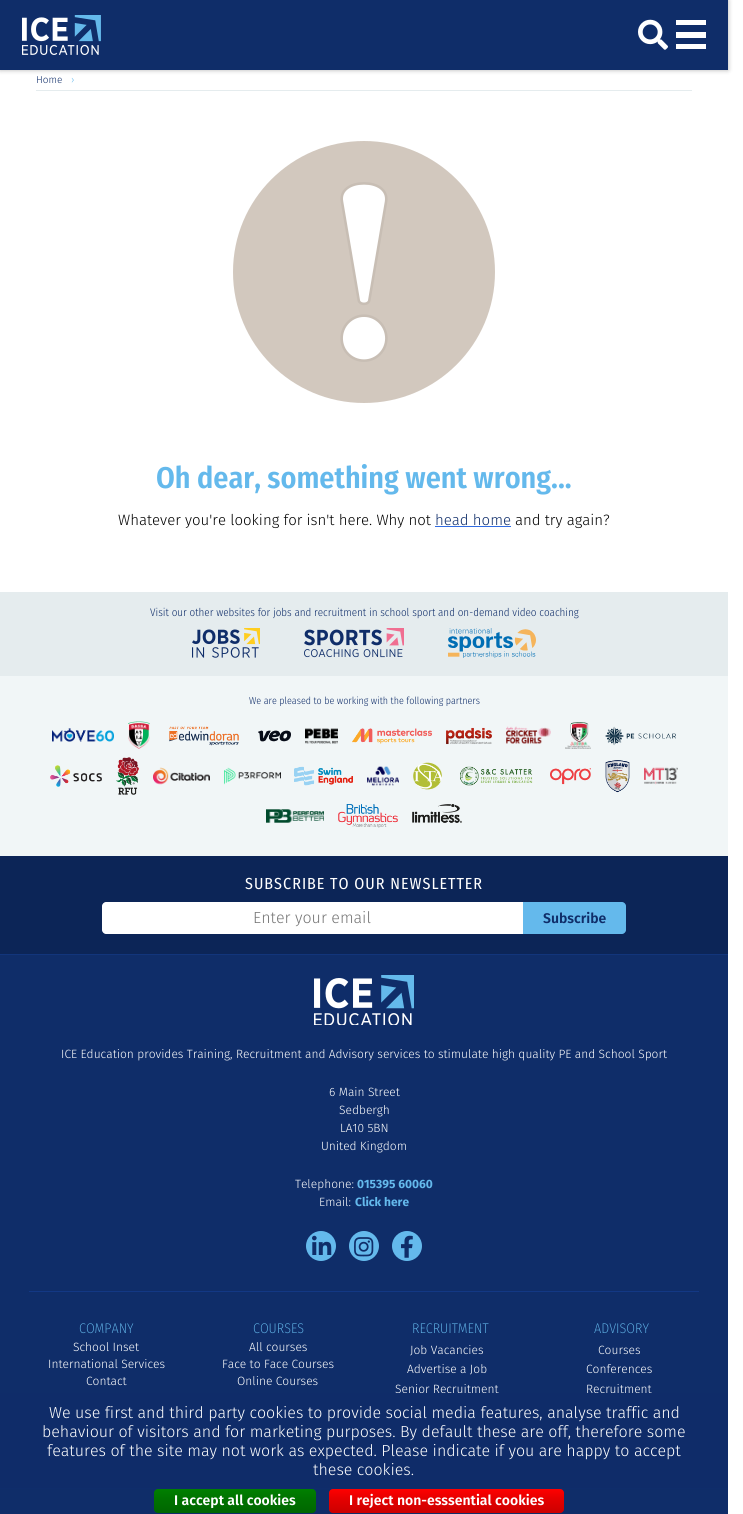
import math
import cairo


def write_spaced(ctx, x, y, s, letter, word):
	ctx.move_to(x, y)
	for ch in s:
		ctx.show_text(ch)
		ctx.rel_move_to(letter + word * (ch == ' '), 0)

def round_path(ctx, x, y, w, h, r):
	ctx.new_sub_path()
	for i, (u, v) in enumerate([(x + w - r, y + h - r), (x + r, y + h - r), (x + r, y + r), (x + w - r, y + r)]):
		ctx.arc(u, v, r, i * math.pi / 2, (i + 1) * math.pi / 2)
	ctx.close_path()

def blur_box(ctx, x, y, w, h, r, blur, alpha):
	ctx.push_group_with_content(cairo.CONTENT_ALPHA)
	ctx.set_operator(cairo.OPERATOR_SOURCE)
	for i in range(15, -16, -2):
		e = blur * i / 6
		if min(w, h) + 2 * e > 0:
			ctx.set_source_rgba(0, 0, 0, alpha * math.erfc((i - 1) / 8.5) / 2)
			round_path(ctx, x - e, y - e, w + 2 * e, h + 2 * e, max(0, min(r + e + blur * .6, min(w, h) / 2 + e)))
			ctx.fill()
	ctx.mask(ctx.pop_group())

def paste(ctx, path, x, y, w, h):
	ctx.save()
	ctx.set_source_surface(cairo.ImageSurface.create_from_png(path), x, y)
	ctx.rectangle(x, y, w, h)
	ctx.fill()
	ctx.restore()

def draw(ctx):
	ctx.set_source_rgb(1, 1, 1)
	ctx.paint()
	ctx.set_source_rgb(0, 0, 0)
	blur_box(ctx, 0, 0, 728, 70, 0, 2.5, 0.3)
	ctx.set_source_rgb(0.059, 0.176, 0.412)
	ctx.rectangle(0, 0, 728, 70)
	ctx.fill()
	paste(ctx, 'media/1.png', 22, 15, 79, 40)
	paste(ctx, 'media/2.png', 638, 19, 30, 31)
	ctx.set_source_rgb(1, 1, 1)
	ctx.rectangle(676, 20, 30, 5)
	ctx.rectangle(676, 32, 30, 6)
	ctx.rectangle(676, 44, 30, 5)
	ctx.fill()
	ctx.select_font_face('Fira Sans Light')
	ctx.set_font_size(10)
	ctx.set_source_rgb(0.059, 0.176, 0.412)
	ctx.move_to(36, 83)
	ctx.show_text('Home')
	ctx.set_source_rgb(0.392, 0.725, 0.922)
	ctx.move_to(71, 83)
	ctx.show_text('›')
	ctx.set_source_rgb(0.898, 0.922, 0.933)
	ctx.rectangle(36, 90, 656, 1)
	ctx.fill()
	paste(ctx, 'media/3.png', 233, 141, 262, 262)
	ctx.select_font_face('Fira Sans Condensed SemiBold')
	ctx.set_font_size(30)
	ctx.set_source_rgb(0.392, 0.725, 0.922)
	ctx.move_to(156, 488)
	ctx.show_text('Oh dear, something went wrong...')
	ctx.select_font_face('Fira Sans Light')
	ctx.set_font_size(15)
	ctx.set_source_rgb(0, 0, 0)
	ctx.move_to(118, 525)
	ctx.show_text('Whatever you\'re looking for isn\'t here. Why not')
	ctx.set_source_rgb(0.059, 0.176, 0.412)
	ctx.move_to(435, 525)
	ctx.show_text('head home')
	ctx.set_source_rgb(0.188, 0.42, 0.882)
	ctx.rectangle(435, 526, 76, 1)
	ctx.fill()
	ctx.set_source_rgb(0, 0, 0)
	ctx.move_to(515, 525)
	ctx.show_text('and try again?')
	ctx.set_source_rgb(0.898, 0.922, 0.933)
	ctx.rectangle(0, 592, 728, 84)
	ctx.fill()
	ctx.select_font_face('Fira Sans Condensed Light')
	ctx.set_font_size(11)
	ctx.set_source_rgb(0.059, 0.176, 0.412)
	ctx.move_to(150, 616)
	ctx.show_text('Visit our other websites for jobs and recruitment in school sport and on-demand video coaching')
	paste(ctx, 'media/4.png', 192, 628, 68, 30)
	paste(ctx, 'media/5.png', 304, 628, 100, 30)
	paste(ctx, 'media/6.png', 448, 628, 88, 30)
	ctx.set_source_rgb(0.945, 0.961, 0.965)
	ctx.rectangle(0, 676, 728, 180)
	ctx.fill()
	ctx.set_font_size(10)
	ctx.set_source_rgb(0.059, 0.176, 0.412)
	ctx.move_to(249, 704)
	ctx.show_text('We are pleased to be working with the following partners')
	paste(ctx, 'media/7.png', 52, 728, 62, 14)
	paste(ctx, 'media/8.png', 128, 721, 22, 28)
	paste(ctx, 'media/9.png', 169, 726, 70, 20)
	paste(ctx, 'media/10.png', 258, 730, 33, 12)
	paste(ctx, 'media/11.png', 305, 728, 33, 16)
	paste(ctx, 'media/12.png', 352, 728, 80, 16)
	paste(ctx, 'media/13.png', 446, 727, 46, 18)
	paste(ctx, 'media/14.png', 506, 726, 45, 18)
	paste(ctx, 'media/15.png', 565, 722, 26, 27)
	paste(ctx, 'media/16.png', 605, 726, 71, 20)
	paste(ctx, 'media/17.png', 50, 765, 52, 22)
	paste(ctx, 'media/18.png', 116, 757, 23, 38)
	paste(ctx, 'media/19.png', 153, 767, 57, 18)
	paste(ctx, 'media/20.png', 224, 767, 57, 18)
	paste(ctx, 'media/21.png', 294, 766, 59, 20)
	paste(ctx, 'media/22.png', 367, 766, 32, 20)
	paste(ctx, 'media/23.png', 413, 762, 29, 28)
	paste(ctx, 'media/24.png', 460, 766, 73, 20)
	paste(ctx, 'media/25.png', 550, 768, 41, 17)
	paste(ctx, 'media/26.png', 605, 760, 25, 33)
	paste(ctx, 'media/27.png', 644, 767, 34, 18)
	paste(ctx, 'media/28.png', 266, 809, 58, 14)
	paste(ctx, 'media/29.png', 338, 804, 60, 24)
	paste(ctx, 'media/30.png', 412, 804, 50, 19)
	ctx.set_source_rgb(0.047, 0.145, 0.341)
	ctx.rectangle(0, 856, 728, 98)
	ctx.fill()
	ctx.set_source_rgb(0.071, 0.208, 0.482)
	ctx.rectangle(0, 954, 728, 1)
	ctx.fill()
	ctx.select_font_face('Fira Sans Condensed')
	ctx.set_font_size(16)
	ctx.set_source_rgb(1, 1, 1)
	write_spaced(ctx, 245, 889, 'SUBSCRIBE TO OUR NEWSLETTER', 1, 0)
	ctx.new_path()
	ctx.move_to(106, 902)
	ctx.line_to(523, 902)
	ctx.line_to(523, 934)
	ctx.line_to(106, 934)
	ctx.curve_to(104, 934, 102, 932, 102, 930)
	ctx.line_to(102, 906)
	ctx.curve_to(102, 904, 104, 902, 106, 902)
	ctx.close_path()
	ctx.fill()
	ctx.select_font_face('Fira Sans Light')
	ctx.set_source_rgb(0.459, 0.459, 0.459)
	ctx.move_to(253, 923)
	ctx.show_text('Enter your email')
	ctx.set_source_rgb(0.392, 0.725, 0.922)
	ctx.new_path()
	ctx.move_to(523, 902)
	ctx.line_to(622, 902)
	ctx.curve_to(624, 902, 626, 904, 626, 906)
	ctx.line_to(626, 930)
	ctx.curve_to(626, 932, 624, 934, 622, 934)
	ctx.line_to(523, 934)
	ctx.close_path()
	ctx.fill()
	ctx.select_font_face('Fira Sans SemiBold')
	ctx.set_font_size(14)
	ctx.set_source_rgb(0.059, 0.176, 0.412)
	ctx.move_to(543, 923)
	ctx.show_text('Subscribe')
	ctx.rectangle(0, 955, 728, 559)
	ctx.fill()
	ctx.set_source_rgb(0.075, 0.22, 0.518)
	ctx.rectangle(29, 1291, 670, 1)
	ctx.fill()
	paste(ctx, 'media/31.png', 314, 975, 100, 50)
	ctx.select_font_face('Fira Sans Light')
	ctx.set_font_size(12)
	ctx.set_source_rgb(1, 1, 1)
	for x, y, s in [
		(61, 1058, 'ICE Education provides Training, Recruitment and Advisory services to stimulate high quality PE and School Sport'),
		(329, 1096, '6 Main Street'),
		(339, 1114, 'Sedbergh'),
		(340, 1132, 'LA10 5BN'),
		(321, 1150, 'United Kingdom'),
		(295, 1188, 'Telephone:'),
	]:
		ctx.move_to(x, y)
		ctx.show_text(s)
	ctx.select_font_face('Fira Sans', cairo.FONT_SLANT_NORMAL, cairo.FONT_WEIGHT_BOLD)
	ctx.set_source_rgb(0.392, 0.725, 0.922)
	ctx.move_to(357, 1188)
	ctx.show_text('015395 60060')
	ctx.select_font_face('Fira Sans Light')
	ctx.set_source_rgb(1, 1, 1)
	ctx.move_to(319, 1206)
	ctx.show_text('Email:')
	ctx.select_font_face('Fira Sans', cairo.FONT_SLANT_NORMAL, cairo.FONT_WEIGHT_BOLD)
	ctx.set_source_rgb(0.392, 0.725, 0.922)
	ctx.move_to(355, 1206)
	ctx.show_text('Click here')
	ctx.new_path()
	ctx.arc(321, 1246, 15, 0, 2 * math.pi)
	ctx.fill()
	paste(ctx, 'media/32.png', 312, 1235, 20, 20)
	ctx.arc(364, 1246, 15, 0, 2 * math.pi)
	ctx.fill()
	paste(ctx, 'media/33.png', 354, 1237, 20, 20)
	ctx.arc(407, 1246, 15, 0, 2 * math.pi)
	ctx.fill()
	paste(ctx, 'media/34.png', 401, 1235, 12, 23)
	ctx.select_font_face('Fira Sans Condensed ExtraLight')
	ctx.set_font_size(14)
	ctx.move_to(79, 1333)
	ctx.show_text('COMPANY')
	ctx.select_font_face('Fira Sans Light')
	ctx.set_font_size(12)
	ctx.set_source_rgb(1, 1, 1)
	for x, y, s in [
		(73, 1351, 'School Inset'),
		(48, 1368, 'International Services'),
		(86, 1385, 'Contact'),
	]:
		ctx.move_to(x, y)
		ctx.show_text(s)
	ctx.select_font_face('Fira Sans Condensed ExtraLight')
	ctx.set_font_size(14)
	ctx.set_source_rgb(0.392, 0.725, 0.922)
	ctx.move_to(253, 1333)
	ctx.show_text('COURSES')
	ctx.select_font_face('Fira Sans Light')
	ctx.set_font_size(12)
	ctx.set_source_rgb(1, 1, 1)
	for x, y, s in [
		(249, 1351, 'All courses'),
		(222, 1368, 'Face to Face Courses'),
		(237, 1385, 'Online Courses'),
	]:
		ctx.move_to(x, y)
		ctx.show_text(s)
	ctx.select_font_face('Fira Sans Condensed ExtraLight')
	ctx.set_font_size(14)
	ctx.set_source_rgb(0.392, 0.725, 0.922)
	ctx.move_to(412, 1333)
	ctx.show_text('RECRUITMENT')
	ctx.select_font_face('Fira Sans Light')
	ctx.set_font_size(12)
	ctx.set_source_rgb(1, 1, 1)
	for x, y, s in [
		(410, 1354, 'Job Vacancies'),
		(407, 1373, 'Advertise a Job'),
		(395, 1393, 'Senior Recruitment'),
	]:
		ctx.move_to(x, y)
		ctx.show_text(s)
	ctx.select_font_face('Fira Sans Condensed ExtraLight')
	ctx.set_font_size(14)
	ctx.set_source_rgb(0.392, 0.725, 0.922)
	ctx.move_to(594, 1333)
	ctx.show_text('ADVISORY')
	ctx.select_font_face('Fira Sans Light')
	ctx.set_font_size(12)
	ctx.set_source_rgb(1, 1, 1)
	for x, y, s in [
		(598, 1354, 'Courses'),
		(586, 1373, 'Conferences'),
		(586, 1393, 'Recruitment'),
	]:
		ctx.move_to(x, y)
		ctx.show_text(s)
	ctx.set_source_rgb(0.082, 0.251, 0.588)
	ctx.rectangle(0, 1488, 728, 1)
	ctx.fill()
	ctx.set_source_rgba(0.059, 0.176, 0.412, 0.95)
	ctx.rectangle(0, 1393, 728, 96)
	ctx.fill()
	ctx.set_font_size(16)
	ctx.set_source_rgb(1, 1, 1)
	for x, y, s in [
		(49, 1418, 'We use first and third party cookies to provide social media features, analyse traffic and'),
		(42, 1437, 'behaviour of visitors and for marketing purposes. By default these are off, therefore some'),
		(47, 1456, 'features of the site may not work as expected. Please indicate if you are happy to accept'),
		(313, 1475, 'these cookies.'),
	]:
		ctx.move_to(x, y)
		ctx.show_text(s)
	ctx.set_source_rgb(0, 0.502, 0)
	round_path(ctx, 154, 1489, 162, 24, 4)
	ctx.fill()
	gradient = cairo.LinearGradient(235, 1489, 235, 1513)
	gradient.add_color_stop_rgba(0, 0, 0, 0, 0)
	gradient.add_color_stop_rgba(0.4, 0, 0, 0, 0.1)
	gradient.add_color_stop_rgba(1, 0, 0, 0, 0.2)
	ctx.set_source(gradient)
	round_path(ctx, 154, 1489, 162, 24, 4)
	ctx.fill()
	ctx.select_font_face('Fira Sans SemiBold')
	ctx.set_font_size(14)
	ctx.set_source_rgb(1, 1, 1)
	ctx.move_to(174, 1505)
	ctx.show_text('I accept all cookies')
	ctx.set_source_rgb(1, 0, 0)
	round_path(ctx, 329, 1489, 235, 24, 4)
	ctx.fill()
	gradient = cairo.LinearGradient(447, 1489, 447, 1513)
	gradient.add_color_stop_rgba(0, 0, 0, 0, 0)
	gradient.add_color_stop_rgba(0.4, 0, 0, 0, 0.1)
	gradient.add_color_stop_rgba(1, 0, 0, 0, 0.2)
	ctx.set_source(gradient)
	round_path(ctx, 329, 1489, 235, 24, 4)
	ctx.fill()
	ctx.set_source_rgb(1, 1, 1)
	ctx.move_to(349, 1505)
	ctx.show_text('I reject non-esssential cookies')


surface = cairo.ImageSurface(cairo.FORMAT_RGB24, 743, 1514)
ctx = cairo.Context(surface)
options = cairo.FontOptions()
options.set_hint_metrics(cairo.HINT_METRICS_OFF)
options.set_hint_style(cairo.HINT_STYLE_NONE)
ctx.set_font_options(options)
ctx.set_miter_limit(4)
draw(ctx)
surface.write_to_png('image.png')
